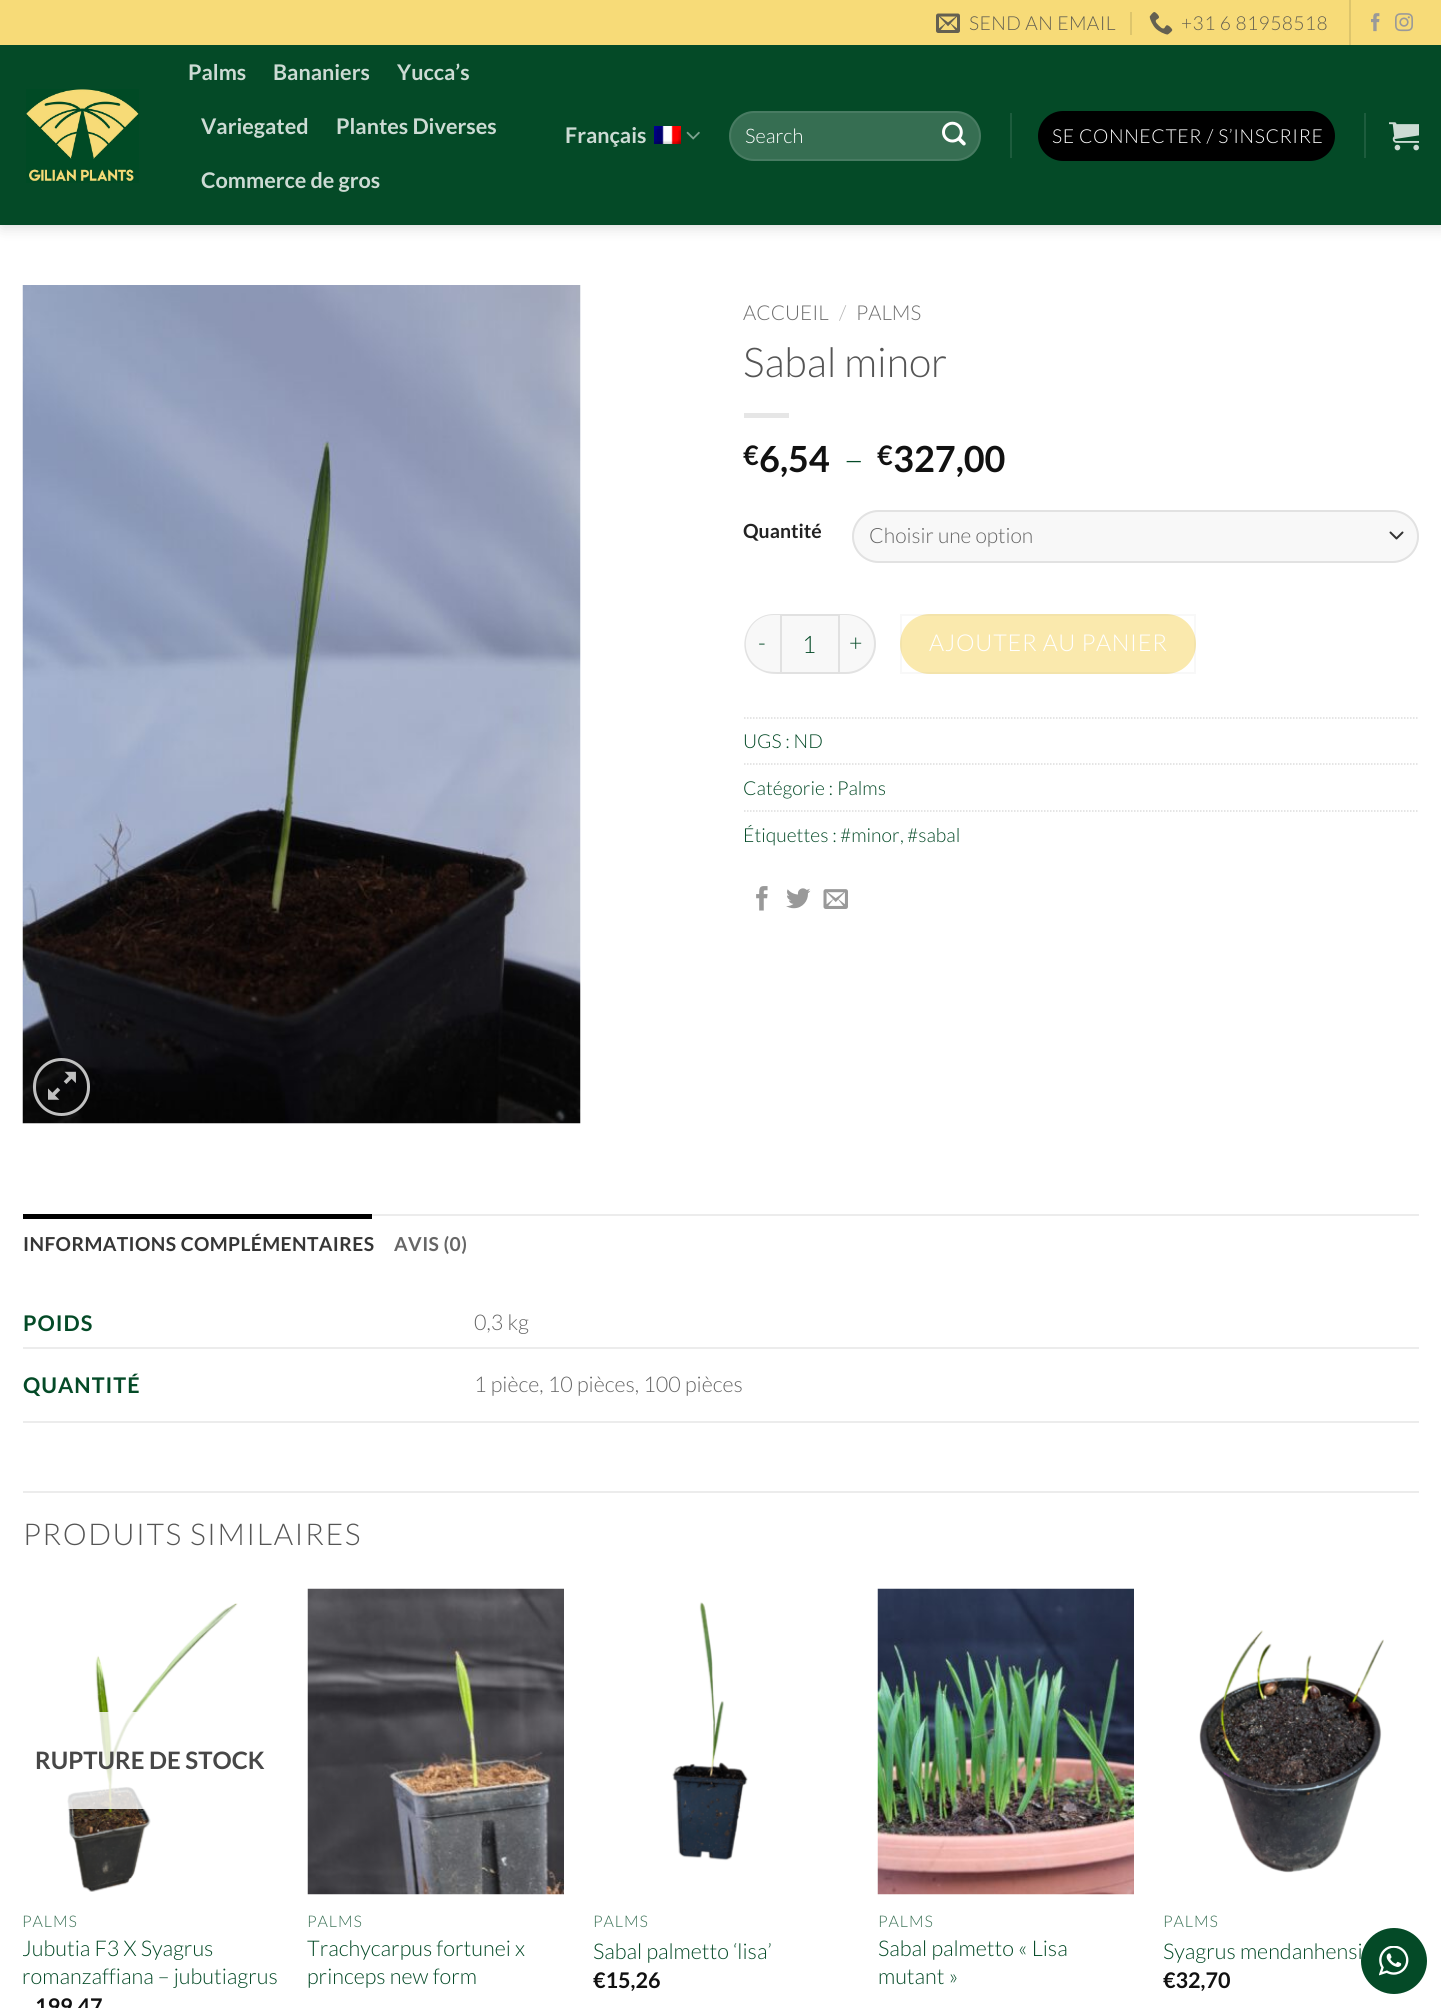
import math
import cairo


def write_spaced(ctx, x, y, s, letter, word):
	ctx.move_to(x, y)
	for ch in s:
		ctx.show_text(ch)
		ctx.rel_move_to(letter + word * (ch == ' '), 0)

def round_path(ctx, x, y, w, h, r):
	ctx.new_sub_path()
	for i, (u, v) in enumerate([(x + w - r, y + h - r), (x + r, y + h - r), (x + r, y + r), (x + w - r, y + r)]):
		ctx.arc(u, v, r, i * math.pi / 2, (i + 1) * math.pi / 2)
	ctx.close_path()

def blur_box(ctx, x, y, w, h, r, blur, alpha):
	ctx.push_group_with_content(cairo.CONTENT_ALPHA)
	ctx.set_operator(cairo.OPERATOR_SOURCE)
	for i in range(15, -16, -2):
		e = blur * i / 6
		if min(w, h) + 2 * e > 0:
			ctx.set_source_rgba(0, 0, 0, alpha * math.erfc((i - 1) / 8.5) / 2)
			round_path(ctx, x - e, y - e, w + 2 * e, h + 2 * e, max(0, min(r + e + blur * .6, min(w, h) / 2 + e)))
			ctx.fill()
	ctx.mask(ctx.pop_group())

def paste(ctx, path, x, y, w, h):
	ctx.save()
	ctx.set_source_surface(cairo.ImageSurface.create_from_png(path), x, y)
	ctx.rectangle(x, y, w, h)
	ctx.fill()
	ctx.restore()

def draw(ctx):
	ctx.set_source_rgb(1, 1, 1)
	ctx.paint()
	ctx.set_source_rgb(0, 0, 0)
	blur_box(ctx, 2, 2, 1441, 225, 0, 7.5, 0.15)
	ctx.set_source_rgb(0.965, 0.859, 0.471)
	ctx.rectangle(0, 0, 1441, 45)
	ctx.fill()
	paste(ctx, 'media/1.png', 936, 13, 24, 20)
	ctx.select_font_face('Lato Light')
	ctx.set_font_size(19.25)
	ctx.set_source_rgb(0.392, 0.376, 0.318)
	write_spaced(ctx, 969, 30, 'SEND AN EMAIL', 0.4, 0)
	ctx.set_source_rgb(0.867, 0.773, 0.424)
	ctx.rectangle(1130, 12, 2, 23)
	ctx.fill()
	paste(ctx, 'media/2.png', 1149, 12, 24, 23)
	ctx.set_source_rgb(0.392, 0.376, 0.318)
	write_spaced(ctx, 1181, 30, '+31 6 81958518', 0.4, 0)
	ctx.set_source_rgb(0.867, 0.773, 0.424)
	ctx.rectangle(1349, 0, 2, 45)
	ctx.fill()
	paste(ctx, 'media/3.png', 1371, 13, 9, 19)
	paste(ctx, 'media/4.png', 1395, 13, 18, 19)
	ctx.set_source_rgb(0.016, 0.29, 0.153)
	ctx.rectangle(0, 45, 1441, 180)
	ctx.fill()
	paste(ctx, 'media/5.png', 26, 89, 113, 94)
	ctx.select_font_face('Lato', cairo.FONT_SLANT_NORMAL, cairo.FONT_WEIGHT_BOLD)
	ctx.set_font_size(21.6)
	ctx.set_source_rgb(0.804, 0.859, 0.831)
	for x, y, s in [
		(188, 80, 'Palms'),
		(273, 80, 'Bananiers'),
		(397, 80, 'Yucca’s'),
		(201, 134, 'Variegated'),
		(336, 134, 'Plantes Diverses'),
		(201, 188, 'Commerce de gros'),
		(565, 143, 'Français'),
	]:
		ctx.move_to(x, y)
		ctx.show_text(s)
	paste(ctx, 'media/6.png', 654, 126, 27, 18)
	paste(ctx, 'media/7.png', 686, 131, 14, 9)
	ctx.set_source_rgb(0.212, 0.431, 0.322)
	round_path(ctx, 729, 111, 252, 50, 25)
	ctx.fill()
	round_path(ctx, 730, 112, 250, 48, 24)
	ctx.set_source_rgba(1, 1, 1, 0.09)
	ctx.stroke()
	ctx.select_font_face('Lato Light')
	ctx.set_font_size(20)
	ctx.set_source_rgb(1, 1, 1)
	ctx.move_to(745, 143)
	ctx.show_text('Search')
	paste(ctx, 'media/8.png', 942, 121, 24, 25)
	ctx.set_source_rgb(0.114, 0.361, 0.239)
	ctx.rectangle(1010, 113, 2, 45)
	ctx.fill()
	ctx.set_source_rgb(0, 0, 0)
	round_path(ctx, 1038, 111, 297, 50, 25)
	ctx.fill()
	ctx.set_font_size(19.25)
	ctx.set_source_rgb(1, 1, 1)
	write_spaced(ctx, 1052, 143, 'SE CONNECTER / S’INSCRIRE', 0.6, 0)
	ctx.set_source_rgb(0.114, 0.361, 0.239)
	ctx.rectangle(1364, 113, 2, 45)
	ctx.fill()
	paste(ctx, 'media/9.png', 1389, 122, 30, 29)
	paste(ctx, 'media/10.png', 22, 285, 559, 839)
	round_path(ctx, 34.5, 1059.5, 54, 55, 27)
	ctx.set_source_rgb(0.753, 0.753, 0.753)
	ctx.set_line_width(3)
	ctx.stroke()
	paste(ctx, 'media/11.png', 48, 1071, 28, 29)
	ctx.set_font_size(20.5)
	ctx.set_source_rgb(0.431, 0.431, 0.431)
	ctx.move_to(743, 320)
	ctx.show_text('ACCUEIL')
	ctx.set_source_rgb(0.698, 0.698, 0.698)
	ctx.move_to(839, 320)
	ctx.show_text('/')
	ctx.set_source_rgb(0.431, 0.431, 0.431)
	ctx.move_to(856, 320)
	ctx.show_text('PALMS')
	ctx.set_font_size(41)
	ctx.set_source_rgb(0.333, 0.333, 0.333)
	ctx.move_to(743, 377)
	ctx.show_text('Sabal minor')
	ctx.set_source_rgb(0.902, 0.902, 0.902)
	ctx.rectangle(744, 413, 45, 5)
	ctx.fill()
	ctx.select_font_face('Lato', cairo.FONT_SLANT_NORMAL, cairo.FONT_WEIGHT_BOLD)
	ctx.set_font_size(27)
	ctx.set_source_rgb(0.067, 0.067, 0.067)
	ctx.move_to(743, 465)
	ctx.show_text('€')
	ctx.set_font_size(36)
	ctx.move_to(759, 472)
	ctx.show_text('6,54')
	ctx.select_font_face('Lato Light')
	ctx.set_source_rgb(0.016, 0.29, 0.153)
	ctx.move_to(844, 472)
	ctx.show_text('–')
	ctx.select_font_face('Lato', cairo.FONT_SLANT_NORMAL, cairo.FONT_WEIGHT_BOLD)
	ctx.set_font_size(27)
	ctx.set_source_rgb(0.067, 0.067, 0.067)
	ctx.move_to(877, 465)
	ctx.show_text('€')
	ctx.set_font_size(36)
	ctx.move_to(893, 472)
	ctx.show_text('327,00')
	ctx.set_font_size(19.5)
	ctx.set_source_rgb(0.133, 0.133, 0.133)
	ctx.move_to(743, 538)
	ctx.show_text('Quantité')
	ctx.set_source_rgb(0.969, 0.969, 0.969)
	round_path(ctx, 852, 510, 567, 53, 26.5)
	ctx.fill()
	ctx.new_path()
	ctx.move_to(1390.5, 532.5)
	ctx.line_to(1396.5, 538.5)
	ctx.line_to(1402.5, 532.5)
	ctx.set_source_rgb(0.2, 0.2, 0.2)
	ctx.set_line_width(2)
	ctx.set_line_cap(cairo.LINE_CAP_ROUND)
	ctx.set_line_join(cairo.LINE_JOIN_ROUND)
	ctx.stroke()
	round_path(ctx, 853, 511, 565, 51, 25.5)
	ctx.set_source_rgba(0, 0, 0, 0.09)
	ctx.set_line_cap(cairo.LINE_CAP_BUTT)
	ctx.set_line_join(cairo.LINE_JOIN_MITER)
	ctx.stroke()
	ctx.select_font_face('Lato Light')
	ctx.set_font_size(21)
	ctx.set_source_rgb(0.4, 0.4, 0.4)
	ctx.move_to(869, 543)
	ctx.show_text('Choisir une option')
	ctx.set_source_rgb(0.969, 0.969, 0.969)
	ctx.new_path()
	ctx.move_to(774, 614)
	ctx.line_to(780, 614)
	ctx.line_to(780, 674)
	ctx.line_to(774, 674)
	ctx.curve_to(757.5, 674, 744, 660.5, 744, 644)
	ctx.curve_to(744, 627.5, 757.5, 614, 774, 614)
	ctx.close_path()
	ctx.fill()
	ctx.set_source_rgba(0, 0, 0, 0.09)
	ctx.set_fill_rule(cairo.FILL_RULE_EVEN_ODD)
	ctx.new_path()
	ctx.move_to(774, 614)
	ctx.line_to(780, 614)
	ctx.line_to(780, 674)
	ctx.curve_to(774, 674, 768, 674, 762, 671)
	ctx.curve_to(733, 659, 742, 614, 774, 614)
	ctx.close_path()
	ctx.move_to(774, 615)
	ctx.line_to(780, 615)
	ctx.line_to(780, 672)
	ctx.curve_to(774, 672, 768, 672, 763, 670)
	ctx.curve_to(735, 658, 743, 615, 774, 615)
	ctx.close_path()
	ctx.fill()
	ctx.set_font_size(23.25)
	ctx.set_source_rgb(0.016, 0.29, 0.153)
	write_spaced(ctx, 758, 651, '-', 0.75, 0)
	ctx.set_source_rgb(0.969, 0.969, 0.969)
	ctx.rectangle(781, 615, 58, 58)
	ctx.fill_preserve()
	ctx.set_source_rgb(0.882, 0.882, 0.882)
	ctx.stroke()
	ctx.set_font_size(24)
	ctx.set_source_rgb(0.016, 0.29, 0.153)
	ctx.move_to(802, 653)
	ctx.show_text('1')
	ctx.set_source_rgb(0.969, 0.969, 0.969)
	ctx.new_path()
	ctx.move_to(840, 614)
	ctx.line_to(846, 614)
	ctx.curve_to(862.5, 614, 876, 627.5, 876, 644)
	ctx.curve_to(876, 660.5, 862.5, 674, 846, 674)
	ctx.line_to(840, 674)
	ctx.close_path()
	ctx.fill()
	ctx.set_source_rgba(0, 0, 0, 0.09)
	ctx.new_path()
	ctx.move_to(840, 614)
	ctx.line_to(846, 614)
	ctx.curve_to(863, 614, 876, 627, 876, 644)
	ctx.curve_to(876, 660, 863, 674, 846, 674)
	ctx.line_to(840, 674)
	ctx.close_path()
	ctx.move_to(840, 615)
	ctx.line_to(846, 615)
	ctx.curve_to(862, 615, 874, 628, 874, 644)
	ctx.curve_to(874, 659, 862, 672, 846, 672)
	ctx.line_to(840, 672)
	ctx.close_path()
	ctx.fill()
	ctx.set_font_size(23.25)
	ctx.set_source_rgb(0.016, 0.29, 0.153)
	write_spaced(ctx, 849, 651, '+', 0.75, 0)
	ctx.set_source_rgb(0.98, 0.914, 0.678)
	round_path(ctx, 900, 614, 296, 60, 30)
	ctx.fill()
	ctx.rectangle(901, 615, 294, 58)
	ctx.set_source_rgba(0.4, 0.4, 0.4, 0.05)
	ctx.stroke()
	ctx.set_source_rgb(1, 1, 1)
	write_spaced(ctx, 929, 651, 'AJOUTER AU PANIER', 0.75, 0)
	ctx.new_path()
	ctx.move_to(744, 718)
	ctx.line_to(1419, 718)
	ctx.set_source_rgb(0.867, 0.867, 0.867)
	ctx.set_line_width(1.5)
	ctx.set_dash([1.5, 1.5])
	ctx.stroke()
	ctx.set_font_size(19.25)
	ctx.set_source_rgb(0.016, 0.29, 0.153)
	ctx.move_to(743, 748)
	ctx.show_text('UGS : ND')
	ctx.new_path()
	ctx.move_to(744, 764)
	ctx.line_to(1419, 764)
	ctx.set_source_rgb(0.867, 0.867, 0.867)
	ctx.stroke()
	ctx.set_source_rgb(0.016, 0.29, 0.153)
	ctx.move_to(743, 795)
	ctx.show_text('Catégorie :')
	ctx.move_to(837, 795)
	ctx.show_text('Palms')
	ctx.new_path()
	ctx.move_to(744, 811)
	ctx.line_to(1419, 811)
	ctx.set_source_rgb(0.867, 0.867, 0.867)
	ctx.stroke()
	ctx.set_source_rgb(0.016, 0.29, 0.153)
	for x, y, s in [
		(743, 842, 'Étiquettes :'),
		(840, 842, '#minor'),
		(900, 842, ','),
		(907, 842, '#sabal'),
	]:
		ctx.move_to(x, y)
		ctx.show_text(s)
	paste(ctx, 'media/12.png', 756, 886, 12, 25)
	paste(ctx, 'media/13.png', 786, 888, 25, 21)
	paste(ctx, 'media/14.png', 823, 889, 25, 20)
	ctx.set_source_rgb(0.925, 0.925, 0.925)
	ctx.rectangle(372, 1214, 1047, 2)
	ctx.fill()
	ctx.set_source_rgb(0, 0, 0)
	ctx.rectangle(23, 1214, 349, 5)
	ctx.fill()
	ctx.select_font_face('Lato', cairo.FONT_SLANT_NORMAL, cairo.FONT_WEIGHT_BOLD)
	ctx.set_source_rgb(0.212, 0.212, 0.212)
	write_spaced(ctx, 23, 1251, 'INFORMATIONS COMPLÉMENTAIRES', 0.4, 0)
	ctx.set_source_rgb(0.4, 0.4, 0.4)
	write_spaced(ctx, 394, 1251, 'AVIS (0)', 0.4, 0)
	ctx.set_source_rgb(0.925, 0.925, 0.925)
	ctx.rectangle(23, 1347, 1396, 2)
	ctx.fill()
	ctx.set_font_size(21.6)
	ctx.set_source_rgb(0.016, 0.29, 0.153)
	write_spaced(ctx, 23, 1331, 'POIDS', 1, 0)
	ctx.select_font_face('Lato Light')
	ctx.set_source_rgb(0.4, 0.4, 0.4)
	ctx.move_to(474, 1330)
	ctx.show_text('0,3 kg')
	ctx.set_source_rgb(0.925, 0.925, 0.925)
	ctx.rectangle(23, 1421, 1396, 2)
	ctx.fill()
	ctx.select_font_face('Lato', cairo.FONT_SLANT_NORMAL, cairo.FONT_WEIGHT_BOLD)
	ctx.set_source_rgb(0.016, 0.29, 0.153)
	write_spaced(ctx, 23, 1393, 'QUANTITÉ', 1, 0)
	ctx.select_font_face('Lato Light')
	ctx.set_source_rgb(0.4, 0.4, 0.4)
	ctx.move_to(474, 1392)
	ctx.show_text('1 pièce, 10 pièces, 100 pièces')
	ctx.set_source_rgb(0.925, 0.925, 0.925)
	ctx.rectangle(23, 1491, 1396, 2)
	ctx.fill()
	ctx.set_font_size(30)
	ctx.set_source_rgb(0.333, 0.333, 0.333)
	write_spaced(ctx, 23, 1545, 'PRODUITS SIMILAIRES', 1.5, 0)
	paste(ctx, 'media/15.png', 67, 1603, 171, 289)
	ctx.set_source_rgba(1, 1, 1, 0.81)
	ctx.rectangle(67, 1712, 78, 97)
	ctx.fill()
	ctx.select_font_face('Lato', cairo.FONT_SLANT_NORMAL, cairo.FONT_WEIGHT_BOLD)
	ctx.set_font_size(24)
	ctx.set_source_rgb(0.278, 0.278, 0.278)
	ctx.move_to(35, 1769)
	ctx.show_text('RUPTURE DE STOCK')
	ctx.select_font_face('Lato Light')
	ctx.set_font_size(16)
	ctx.set_source_rgb(0.212, 0.431, 0.322)
	write_spaced(ctx, 22, 1927, 'PALMS', 1, 0)
	ctx.set_font_size(21.6)
	ctx.set_source_rgb(0.016, 0.29, 0.153)
	ctx.move_to(22, 1956)
	ctx.show_text('Jubutia F3 X Syagrus')
	ctx.move_to(22, 1984)
	ctx.show_text('romanzaffiana – jubutiagrus')
	ctx.select_font_face('Lato', cairo.FONT_SLANT_NORMAL, cairo.FONT_WEIGHT_BOLD)
	ctx.set_source_rgb(0.067, 0.067, 0.067)
	ctx.move_to(35, 2014)
	ctx.show_text('199,47')
	paste(ctx, 'media/16.png', 307, 1588, 257, 307)
	ctx.select_font_face('Lato Light')
	ctx.set_font_size(16)
	ctx.set_source_rgb(0.212, 0.431, 0.322)
	write_spaced(ctx, 307, 1927, 'PALMS', 1, 0)
	ctx.set_font_size(21.6)
	ctx.set_source_rgb(0.016, 0.29, 0.153)
	ctx.move_to(307, 1956)
	ctx.show_text('Trachycarpus fortunei x')
	ctx.move_to(307, 1984)
	ctx.show_text('princeps new form')
	paste(ctx, 'media/17.png', 672, 1602, 76, 259)
	ctx.set_font_size(16)
	ctx.set_source_rgb(0.212, 0.431, 0.322)
	write_spaced(ctx, 593, 1927, 'PALMS', 1, 0)
	ctx.set_font_size(21.6)
	ctx.set_source_rgb(0.016, 0.29, 0.153)
	ctx.move_to(593, 1959)
	ctx.show_text('Sabal palmetto ‘lisa’')
	ctx.select_font_face('Lato', cairo.FONT_SLANT_NORMAL, cairo.FONT_WEIGHT_BOLD)
	ctx.set_source_rgb(0.067, 0.067, 0.067)
	ctx.move_to(593, 1988)
	ctx.show_text('€15,26')
	paste(ctx, 'media/18.png', 877, 1588, 257, 307)
	ctx.select_font_face('Lato Light')
	ctx.set_font_size(16)
	ctx.set_source_rgb(0.212, 0.431, 0.322)
	write_spaced(ctx, 878, 1927, 'PALMS', 1, 0)
	ctx.set_font_size(21.6)
	ctx.set_source_rgb(0.016, 0.29, 0.153)
	ctx.move_to(878, 1956)
	ctx.show_text('Sabal palmetto « Lisa')
	ctx.move_to(878, 1984)
	ctx.show_text('mutant »')
	paste(ctx, 'media/19.png', 1199, 1630, 185, 243)
	ctx.set_font_size(16)
	ctx.set_source_rgb(0.212, 0.431, 0.322)
	write_spaced(ctx, 1163, 1927, 'PALMS', 1, 0)
	ctx.set_font_size(21.6)
	ctx.set_source_rgb(0.016, 0.29, 0.153)
	ctx.move_to(1163, 1959)
	ctx.show_text('Syagrus mendanhensi')
	ctx.select_font_face('Lato', cairo.FONT_SLANT_NORMAL, cairo.FONT_WEIGHT_BOLD)
	ctx.set_source_rgb(0.067, 0.067, 0.067)
	ctx.move_to(1163, 1988)
	ctx.show_text('€32,70')
	ctx.set_source_rgb(0.016, 0.29, 0.153)
	ctx.new_path()
	ctx.arc(1394, 1961, 33, 0, 2 * math.pi)
	ctx.fill()
	paste(ctx, 'media/20.png', 1379, 1946, 30, 30)


surface = cairo.ImageSurface(cairo.FORMAT_RGB24, 1441, 2008)
ctx = cairo.Context(surface)
options = cairo.FontOptions()
options.set_hint_metrics(cairo.HINT_METRICS_OFF)
options.set_hint_style(cairo.HINT_STYLE_NONE)
ctx.set_font_options(options)
ctx.set_miter_limit(4)
draw(ctx)
surface.write_to_png('image.png')
